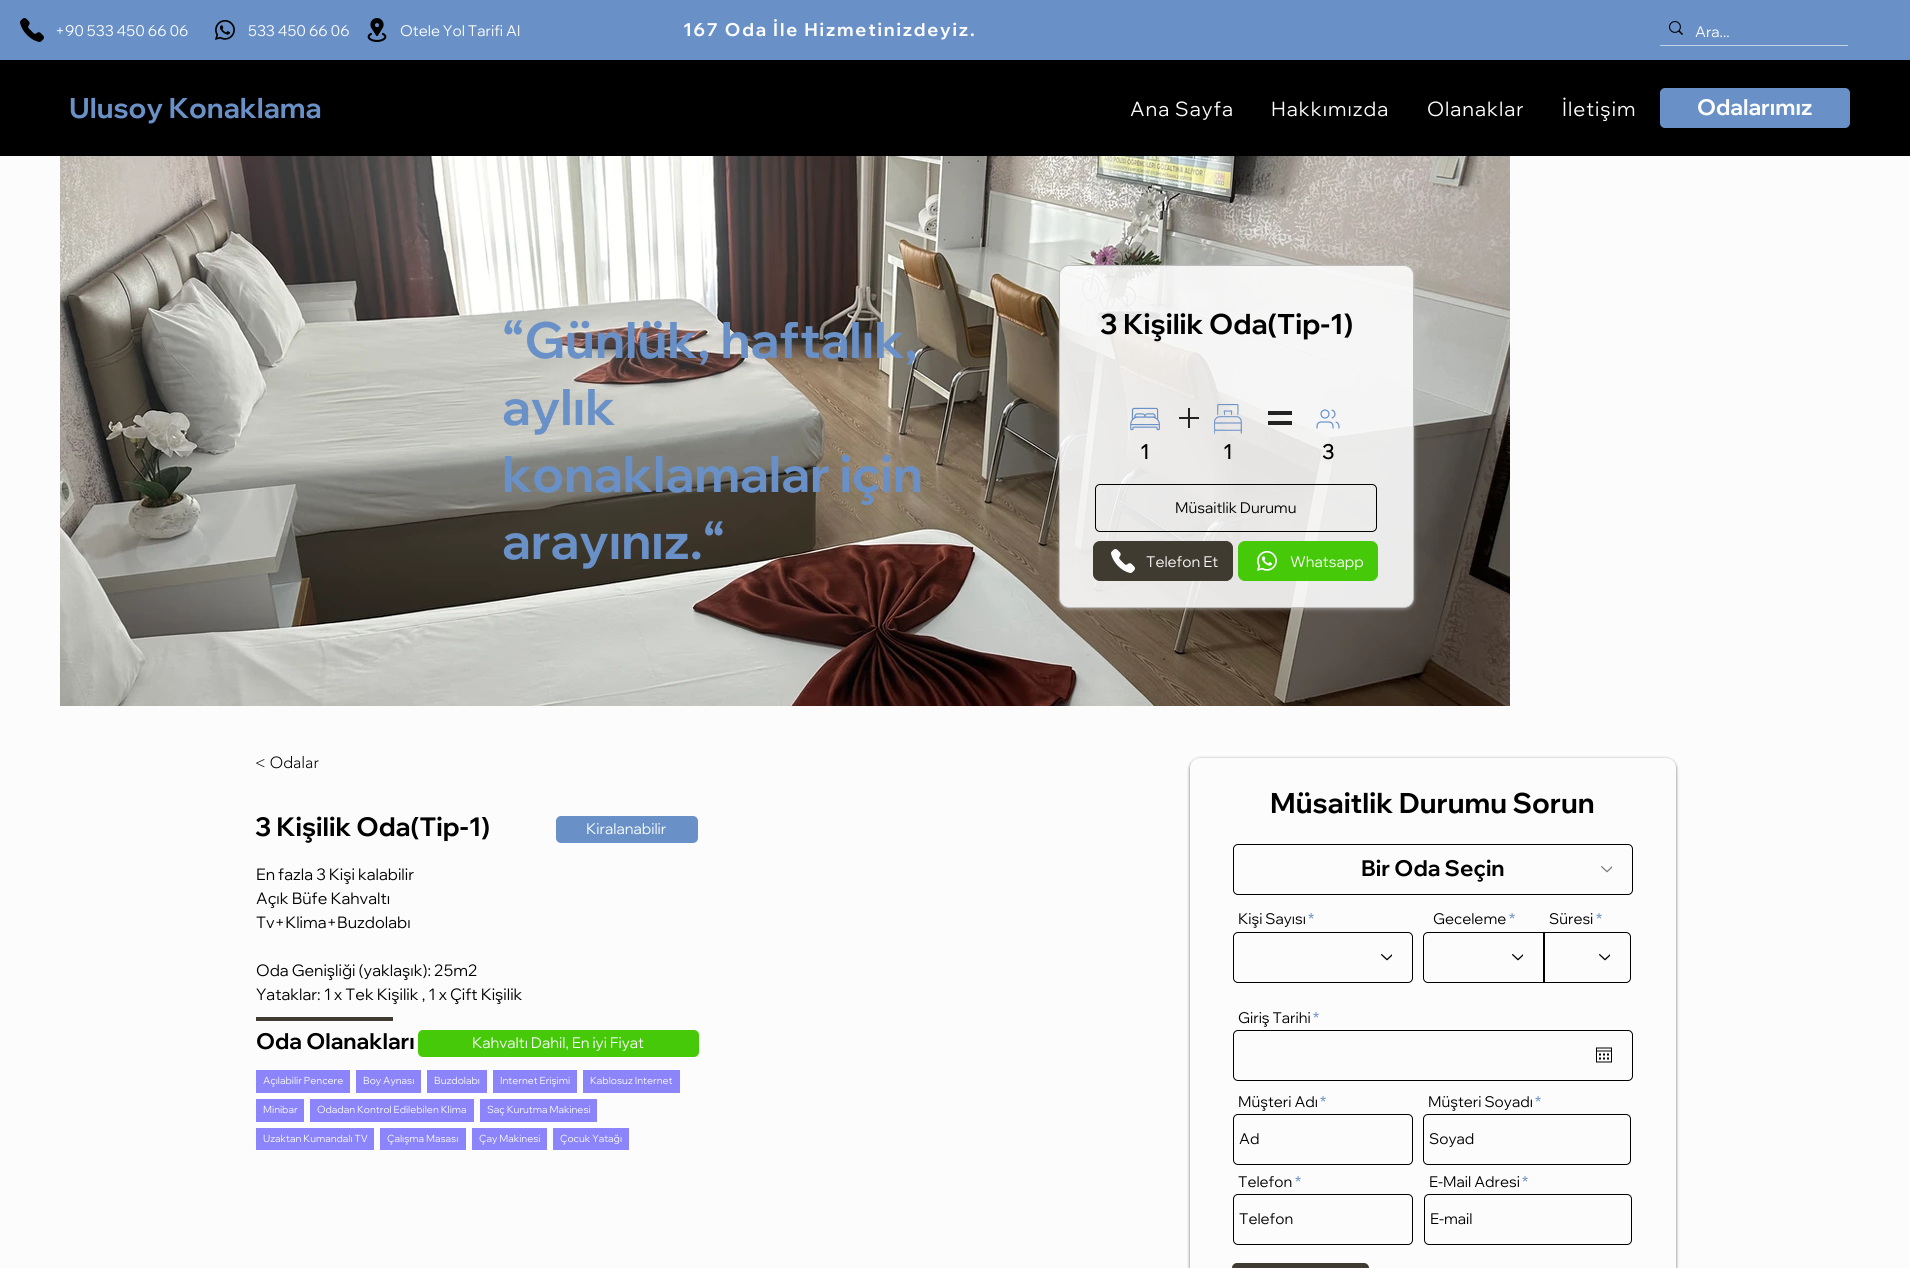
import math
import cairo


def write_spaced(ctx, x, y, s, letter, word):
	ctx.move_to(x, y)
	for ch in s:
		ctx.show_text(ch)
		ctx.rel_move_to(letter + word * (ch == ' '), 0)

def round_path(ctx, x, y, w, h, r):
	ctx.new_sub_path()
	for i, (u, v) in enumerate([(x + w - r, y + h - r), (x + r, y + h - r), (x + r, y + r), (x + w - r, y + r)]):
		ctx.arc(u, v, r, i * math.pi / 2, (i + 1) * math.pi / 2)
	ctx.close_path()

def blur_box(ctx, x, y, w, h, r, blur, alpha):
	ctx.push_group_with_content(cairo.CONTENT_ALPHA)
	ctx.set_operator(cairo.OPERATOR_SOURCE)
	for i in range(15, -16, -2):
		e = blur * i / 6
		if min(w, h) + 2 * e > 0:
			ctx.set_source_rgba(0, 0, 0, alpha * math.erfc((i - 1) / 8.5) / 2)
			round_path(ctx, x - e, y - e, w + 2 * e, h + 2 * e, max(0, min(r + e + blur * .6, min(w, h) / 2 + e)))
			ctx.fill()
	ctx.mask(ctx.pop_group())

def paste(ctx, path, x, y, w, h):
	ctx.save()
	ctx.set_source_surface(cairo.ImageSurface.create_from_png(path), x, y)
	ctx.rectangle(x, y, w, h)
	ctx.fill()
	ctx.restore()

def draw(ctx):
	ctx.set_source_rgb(0.988, 0.988, 0.988)
	ctx.paint()
	ctx.set_source_rgb(0.412, 0.569, 0.784)
	ctx.rectangle(0, 0, 1910, 60)
	ctx.fill()
	paste(ctx, 'media/1.png', 20, 18, 24, 24)
	ctx.select_font_face('Wix Madefor Display')
	ctx.set_font_size(15)
	ctx.set_source_rgb(0.988, 0.988, 0.988)
	ctx.move_to(55, 36)
	ctx.show_text('+90 533 450 66 06')
	paste(ctx, 'media/2.png', 215, 20, 20, 20)
	ctx.move_to(248, 36)
	ctx.show_text('533 450 66 06')
	paste(ctx, 'media/3.png', 367, 18, 20, 24)
	ctx.move_to(400, 36)
	ctx.show_text('Otele Yol Tarifi Al')
	ctx.select_font_face('Wix Madefor Display', cairo.FONT_SLANT_NORMAL, cairo.FONT_WEIGHT_BOLD)
	ctx.set_font_size(18)
	write_spaced(ctx, 683, 36, '167 Oda İle Hizmetinizdeyiz.', 1.8, 0)
	ctx.set_source_rgb(0, 0, 0)
	ctx.rectangle(0, 60, 1910, 96)
	ctx.fill()
	ctx.set_font_size(28)
	ctx.set_source_rgb(0.412, 0.569, 0.784)
	ctx.move_to(69, 118)
	ctx.show_text('Ulusoy Konaklama')
	ctx.select_font_face('Wix Madefor Display')
	ctx.set_font_size(20)
	ctx.set_source_rgb(0.988, 0.988, 0.988)
	for x, y, s in [
		(1130, 116, 'Ana Sayfa'),
		(1271, 116, 'Hakkımızda'),
		(1427, 116, 'Olanaklar'),
		(1562, 116, 'İletişim'),
	]:
		write_spaced(ctx, x, y, s, 1, 0)
	ctx.set_source_rgb(0.412, 0.569, 0.784)
	round_path(ctx, 1660, 88, 190, 40, 5)
	ctx.fill()
	ctx.select_font_face('Wix Madefor Display', cairo.FONT_SLANT_NORMAL, cairo.FONT_WEIGHT_BOLD)
	ctx.set_font_size(22)
	ctx.set_source_rgb(0.988, 0.988, 0.988)
	ctx.move_to(1697, 115)
	ctx.show_text('Odalarımız')
	ctx.set_source_rgb(0.757, 0.82, 0.906)
	ctx.rectangle(1660, 45, 188, 1)
	ctx.fill()
	paste(ctx, 'media/4.png', 1669, 21, 14, 14)
	ctx.select_font_face('Wix Madefor Display')
	ctx.set_font_size(15)
	ctx.set_source_rgb(0.988, 0.988, 0.988)
	ctx.move_to(1695, 37)
	ctx.show_text('Ara...')
	paste(ctx, 'media/5.png', 60, 156, 1450, 550)
	ctx.select_font_face('Wix Madefor Display', cairo.FONT_SLANT_NORMAL, cairo.FONT_WEIGHT_BOLD)
	ctx.set_font_size(50)
	ctx.set_source_rgb(0.412, 0.569, 0.784)
	for x, y, s in [
		(502, 358, '“Günlük, haftalık,'),
		(502, 425, 'aylık'),
		(502, 492, 'konaklamalar için'),
		(502, 559, 'arayınız.“'),
	]:
		ctx.move_to(x, y)
		ctx.show_text(s)
	ctx.save()
	ctx.set_fill_rule(cairo.FILL_RULE_EVEN_ODD)
	ctx.new_path()
	ctx.move_to(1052, 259)
	ctx.line_to(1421, 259)
	ctx.line_to(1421, 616)
	ctx.line_to(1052, 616)
	ctx.close_path()
	ctx.move_to(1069, 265)
	ctx.line_to(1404, 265)
	ctx.curve_to(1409.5, 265, 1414, 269.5, 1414, 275)
	ctx.line_to(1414, 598)
	ctx.curve_to(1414, 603.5, 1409.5, 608, 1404, 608)
	ctx.line_to(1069, 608)
	ctx.curve_to(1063.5, 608, 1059, 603.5, 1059, 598)
	ctx.line_to(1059, 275)
	ctx.curve_to(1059, 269.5, 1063.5, 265, 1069, 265)
	ctx.close_path()
	ctx.clip()
	ctx.set_source_rgb(0.78, 0.78, 0.78)
	blur_box(ctx, 1059, 266, 355, 343, 10, 2, 0.6)
	ctx.restore()
	ctx.set_source_rgba(0.988, 0.988, 0.988, 0.9)
	round_path(ctx, 1059.5, 265.5, 354, 342, 9.5)
	ctx.fill_preserve()
	ctx.set_source_rgb(0.741, 0.741, 0.741)
	ctx.set_line_width(1)
	ctx.stroke()
	ctx.set_font_size(28)
	ctx.set_source_rgb(0, 0, 0)
	ctx.move_to(1100, 334)
	ctx.show_text('3 Kişilik Oda(Tip-1)')
	paste(ctx, 'media/6.png', 1179, 408, 20, 20)
	ctx.set_source_rgb(0.141, 0.137, 0.137)
	ctx.rectangle(1268, 411, 24, 4)
	ctx.fill()
	ctx.rectangle(1268, 421, 24, 4)
	ctx.fill()
	paste(ctx, 'media/7.png', 1130, 407, 30, 24)
	ctx.select_font_face('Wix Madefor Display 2', cairo.FONT_SLANT_NORMAL, cairo.FONT_WEIGHT_BOLD)
	ctx.set_font_size(20)
	ctx.set_source_rgb(0, 0, 0)
	ctx.move_to(1140, 459)
	ctx.show_text('1')
	paste(ctx, 'media/8.png', 1214, 404, 28, 30)
	ctx.move_to(1223, 459)
	ctx.show_text('1')
	paste(ctx, 'media/9.png', 1316, 409, 24, 20)
	ctx.move_to(1322, 459)
	ctx.show_text('3')
	round_path(ctx, 1095.5, 484.5, 281, 47, 4.5)
	ctx.stroke()
	ctx.select_font_face('Wix Madefor Display')
	ctx.set_font_size(15)
	ctx.move_to(1175, 513)
	ctx.show_text('Müsaitlik Durumu')
	ctx.set_source_rgb(0.247, 0.231, 0.188)
	round_path(ctx, 1093.5, 541.5, 139, 39, 6.5)
	ctx.fill_preserve()
	ctx.stroke()
	paste(ctx, 'media/10.png', 1111, 549, 24, 24)
	ctx.set_source_rgb(0.988, 0.988, 0.988)
	ctx.move_to(1146, 567)
	ctx.show_text('Telefon Et')
	ctx.set_source_rgb(0.275, 0.788, 0.039)
	round_path(ctx, 1238.5, 541.5, 139, 39, 6.5)
	ctx.fill_preserve()
	ctx.stroke()
	paste(ctx, 'media/11.png', 1257, 551, 20, 20)
	ctx.set_source_rgb(0.988, 0.988, 0.988)
	ctx.move_to(1290, 567)
	ctx.show_text('Whatsapp')
	ctx.select_font_face('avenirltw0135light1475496 Light')
	ctx.set_font_size(16)
	ctx.set_source_rgb(0, 0, 0)
	ctx.move_to(255, 768)
	ctx.show_text('< Odalar')
	ctx.select_font_face('Wix Madefor Display', cairo.FONT_SLANT_NORMAL, cairo.FONT_WEIGHT_BOLD)
	ctx.set_font_size(26)
	ctx.move_to(255, 836)
	ctx.show_text('3 Kişilik Oda(Tip-1)')
	ctx.select_font_face('Wix Madefor Display')
	ctx.set_font_size(16)
	for x, y, s in [
		(256, 880, 'En fazla 3 Kişi kalabilir'),
		(256, 904, 'Açık Büfe Kahvaltı'),
		(256, 928, 'Tv+Klima+Buzdolabı'),
		(256, 976, 'Oda Genişliği (yaklaşık): 25m2'),
		(256, 1000, 'Yataklar: 1 x Tek Kişilik , 1 x Çift Kişilik'),
	]:
		ctx.move_to(x, y)
		ctx.show_text(s)
	ctx.set_source_rgb(0.412, 0.569, 0.784)
	round_path(ctx, 556, 816, 142, 27, 5)
	ctx.fill()
	ctx.set_font_size(15)
	ctx.set_source_rgb(0.988, 0.988, 0.988)
	ctx.move_to(586, 834)
	ctx.show_text('Kiralanabilir')
	ctx.set_source_rgb(0.247, 0.231, 0.188)
	ctx.rectangle(256, 1017, 137, 4)
	ctx.fill()
	ctx.select_font_face('Wix Madefor Display', cairo.FONT_SLANT_NORMAL, cairo.FONT_WEIGHT_BOLD)
	ctx.set_font_size(22)
	ctx.set_source_rgb(0, 0, 0)
	ctx.move_to(256, 1049)
	ctx.show_text('Oda Olanakları')
	ctx.set_source_rgb(0.549, 0.518, 0.98)
	ctx.rectangle(256, 1070, 94, 23)
	ctx.fill()
	ctx.select_font_face('Wix Madefor Display')
	ctx.set_font_size(10)
	ctx.set_source_rgb(0.988, 0.988, 0.988)
	ctx.move_to(263, 1084)
	ctx.show_text('Açılabilir Pencere')
	ctx.set_source_rgb(0.549, 0.518, 0.98)
	ctx.rectangle(356, 1070, 65, 23)
	ctx.fill()
	ctx.set_source_rgb(0.988, 0.988, 0.988)
	ctx.move_to(363, 1084)
	ctx.show_text('Boy Aynası')
	ctx.set_source_rgb(0.549, 0.518, 0.98)
	ctx.rectangle(427, 1070, 60, 23)
	ctx.fill()
	ctx.set_source_rgb(0.988, 0.988, 0.988)
	ctx.move_to(434, 1084)
	ctx.show_text('Buzdolabı')
	ctx.set_source_rgb(0.549, 0.518, 0.98)
	ctx.rectangle(493, 1070, 84, 23)
	ctx.fill()
	ctx.set_source_rgb(0.988, 0.988, 0.988)
	ctx.move_to(500, 1084)
	ctx.show_text('Internet Erişimi')
	ctx.set_source_rgb(0.549, 0.518, 0.98)
	ctx.rectangle(583, 1070, 97, 23)
	ctx.fill()
	ctx.set_source_rgb(0.988, 0.988, 0.988)
	ctx.move_to(590, 1084)
	ctx.show_text('Kablosuz Internet')
	ctx.set_source_rgb(0.549, 0.518, 0.98)
	ctx.rectangle(256, 1099, 48, 23)
	ctx.fill()
	ctx.set_source_rgb(0.988, 0.988, 0.988)
	ctx.move_to(263, 1113)
	ctx.show_text('Minibar')
	ctx.set_source_rgb(0.549, 0.518, 0.98)
	ctx.rectangle(310, 1099, 164, 23)
	ctx.fill()
	ctx.set_source_rgb(0.988, 0.988, 0.988)
	ctx.move_to(317, 1113)
	ctx.show_text('Odadan Kontrol Edilebilen Klima')
	ctx.set_source_rgb(0.549, 0.518, 0.98)
	ctx.rectangle(480, 1099, 117, 23)
	ctx.fill()
	ctx.set_source_rgb(0.988, 0.988, 0.988)
	ctx.move_to(487, 1113)
	ctx.show_text('Saç Kurutma Makinesi')
	ctx.set_source_rgb(0.549, 0.518, 0.98)
	ctx.rectangle(256, 1128, 118, 22)
	ctx.fill()
	ctx.set_source_rgb(0.988, 0.988, 0.988)
	ctx.move_to(263, 1142)
	ctx.show_text('Uzaktan Kumandalı TV')
	ctx.set_source_rgb(0.549, 0.518, 0.98)
	ctx.rectangle(380, 1128, 86, 22)
	ctx.fill()
	ctx.set_source_rgb(0.988, 0.988, 0.988)
	ctx.move_to(387, 1142)
	ctx.show_text('Çalışma Masası')
	ctx.set_source_rgb(0.549, 0.518, 0.98)
	ctx.rectangle(472, 1128, 75, 22)
	ctx.fill()
	ctx.set_source_rgb(0.988, 0.988, 0.988)
	ctx.move_to(479, 1142)
	ctx.show_text('Çay Makinesi')
	ctx.set_source_rgb(0.549, 0.518, 0.98)
	ctx.rectangle(553, 1128, 76, 22)
	ctx.fill()
	ctx.set_source_rgb(0.988, 0.988, 0.988)
	ctx.move_to(560, 1142)
	ctx.show_text('Çocuk Yatağı')
	ctx.set_source_rgb(0.275, 0.788, 0.039)
	round_path(ctx, 418, 1030, 281, 27, 5)
	ctx.fill()
	ctx.set_font_size(15)
	ctx.set_source_rgb(0.988, 0.988, 0.988)
	ctx.move_to(472, 1048)
	ctx.show_text('Kahvaltı Dahil, En iyi Fiyat')
	ctx.set_source_rgb(0, 0, 0)
	blur_box(ctx, 1190, 759, 486, 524, 10, 1.5, 0.6)
	ctx.set_source_rgb(0.988, 0.988, 0.988)
	round_path(ctx, 1190, 758, 486, 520, 10)
	ctx.fill()
	ctx.select_font_face('Wix Madefor Display', cairo.FONT_SLANT_NORMAL, cairo.FONT_WEIGHT_BOLD)
	ctx.set_font_size(28)
	ctx.set_source_rgb(0, 0, 0)
	ctx.move_to(1270, 813)
	ctx.show_text('Müsaitlik Durumu Sorun')
	round_path(ctx, 1233.5, 844.5, 399, 50, 4.5)
	ctx.stroke()
	ctx.set_font_size(22)
	ctx.move_to(1361, 876)
	ctx.show_text('Bir Oda Seçin')
	paste(ctx, 'media/12.png', 1601, 866, 11, 7)
	ctx.select_font_face('Wix Madefor Display')
	ctx.set_font_size(15)
	ctx.move_to(1238, 924)
	ctx.show_text('Kişi Sayısı')
	ctx.set_source_rgb(0.412, 0.569, 0.784)
	ctx.move_to(1308, 924)
	ctx.show_text('*')
	round_path(ctx, 1233.5, 932.5, 179, 50, 4.5)
	ctx.set_source_rgb(0, 0, 0)
	ctx.stroke()
	paste(ctx, 'media/13.png', 1381, 954, 11, 7)
	ctx.move_to(1433, 924)
	ctx.show_text('Geceleme')
	ctx.set_source_rgb(0.412, 0.569, 0.784)
	ctx.move_to(1509, 924)
	ctx.show_text('*')
	ctx.new_path()
	ctx.move_to(1428, 932.5)
	ctx.line_to(1543.5, 932.5)
	ctx.line_to(1543.5, 982.5)
	ctx.line_to(1428, 982.5)
	ctx.curve_to(1425.5, 982.5, 1423.5, 980.5, 1423.5, 978)
	ctx.line_to(1423.5, 937)
	ctx.curve_to(1423.5, 934.5, 1425.5, 932.5, 1428, 932.5)
	ctx.close_path()
	ctx.set_source_rgb(0, 0, 0)
	ctx.stroke()
	paste(ctx, 'media/13.png', 1512, 954, 11, 7)
	ctx.move_to(1549, 924)
	ctx.show_text('Süresi')
	ctx.set_source_rgb(0.412, 0.569, 0.784)
	ctx.move_to(1596, 924)
	ctx.show_text('*')
	ctx.new_path()
	ctx.move_to(1544.5, 932.5)
	ctx.line_to(1626, 932.5)
	ctx.curve_to(1628.5, 932.5, 1630.5, 934.5, 1630.5, 937)
	ctx.line_to(1630.5, 978)
	ctx.curve_to(1630.5, 980.5, 1628.5, 982.5, 1626, 982.5)
	ctx.line_to(1544.5, 982.5)
	ctx.close_path()
	ctx.set_source_rgb(0, 0, 0)
	ctx.stroke()
	paste(ctx, 'media/13.png', 1599, 954, 11, 7)
	ctx.move_to(1238, 1023)
	ctx.show_text('Giriş Tarihi')
	ctx.set_source_rgb(0.412, 0.569, 0.784)
	ctx.move_to(1313, 1023)
	ctx.show_text('*')
	round_path(ctx, 1233.5, 1030.5, 399, 50, 4.5)
	ctx.set_source_rgb(0, 0, 0)
	ctx.stroke()
	paste(ctx, 'media/14.png', 1596, 1047, 16, 16)
	ctx.move_to(1238, 1107)
	ctx.show_text('Müşteri Adı')
	ctx.set_source_rgb(0.412, 0.569, 0.784)
	ctx.move_to(1320, 1107)
	ctx.show_text('*')
	round_path(ctx, 1233.5, 1114.5, 179, 50, 4.5)
	ctx.set_source_rgb(0, 0, 0)
	ctx.stroke()
	ctx.move_to(1239, 1144)
	ctx.show_text('Ad')
	ctx.move_to(1428, 1107)
	ctx.show_text('Müşteri Soyadı')
	ctx.set_source_rgb(0.412, 0.569, 0.784)
	ctx.move_to(1535, 1107)
	ctx.show_text('*')
	round_path(ctx, 1423.5, 1114.5, 207, 50, 4.5)
	ctx.set_source_rgb(0, 0, 0)
	ctx.stroke()
	ctx.move_to(1429, 1144)
	ctx.show_text('Soyad')
	ctx.move_to(1238, 1187)
	ctx.show_text('Telefon')
	ctx.set_source_rgb(0.412, 0.569, 0.784)
	ctx.move_to(1295, 1187)
	ctx.show_text('*')
	round_path(ctx, 1233.5, 1194.5, 179, 50, 4.5)
	ctx.set_source_rgb(0, 0, 0)
	ctx.stroke()
	ctx.move_to(1239, 1224)
	ctx.show_text('Telefon')
	ctx.move_to(1429, 1187)
	ctx.show_text('E-Mail Adresi')
	ctx.set_source_rgb(0.412, 0.569, 0.784)
	ctx.move_to(1522, 1187)
	ctx.show_text('*')
	round_path(ctx, 1424.5, 1194.5, 207, 50, 4.5)
	ctx.set_source_rgb(0, 0, 0)
	ctx.stroke()
	ctx.move_to(1430, 1224)
	ctx.show_text('E-mail')
	ctx.set_source_rgb(0.247, 0.231, 0.188)
	round_path(ctx, 1232, 1263, 137, 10, 5)
	ctx.fill()


surface = cairo.ImageSurface(cairo.FORMAT_RGB24, 1910, 1268)
ctx = cairo.Context(surface)
options = cairo.FontOptions()
options.set_hint_metrics(cairo.HINT_METRICS_OFF)
options.set_hint_style(cairo.HINT_STYLE_NONE)
ctx.set_font_options(options)
ctx.set_miter_limit(4)
draw(ctx)
surface.write_to_png('image.png')
